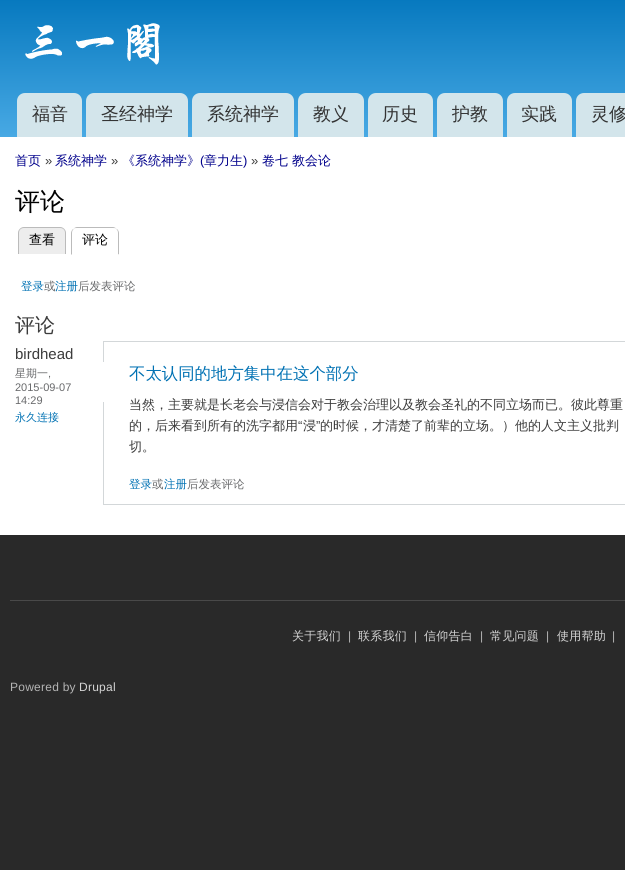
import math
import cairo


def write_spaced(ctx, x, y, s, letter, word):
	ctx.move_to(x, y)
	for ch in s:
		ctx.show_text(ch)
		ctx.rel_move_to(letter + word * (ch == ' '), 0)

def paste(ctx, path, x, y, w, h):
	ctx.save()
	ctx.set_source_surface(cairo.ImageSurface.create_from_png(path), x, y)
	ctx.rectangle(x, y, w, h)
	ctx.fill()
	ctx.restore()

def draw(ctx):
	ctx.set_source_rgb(0.161, 0.161, 0.161)
	ctx.paint()
	ctx.set_source_rgb(1, 1, 1)
	ctx.rectangle(0, 137, 625, 398)
	ctx.fill()
	gradient = cairo.LinearGradient(480, 0, 480, 137)
	gradient.add_color_stop_rgba(0, 0.027, 0.475, 0.749, 1)
	gradient.add_color_stop_rgba(1, 0.282, 0.663, 0.894, 1)
	ctx.set_source(gradient)
	ctx.rectangle(0, 0, 625, 137)
	ctx.fill()
	paste(ctx, 'media/1.png', 25, 23, 135, 42)
	ctx.set_source_rgb(0.827, 0.898, 0.918)
	ctx.new_path()
	ctx.move_to(25, 93)
	ctx.line_to(74, 93)
	ctx.curve_to(78.5, 93, 82, 96.5, 82, 101)
	ctx.line_to(82, 137)
	ctx.line_to(17, 137)
	ctx.line_to(17, 101)
	ctx.curve_to(17, 96.5, 20.5, 93, 25, 93)
	ctx.close_path()
	ctx.fill()
	ctx.select_font_face('WenQuanYi Zen Hei Medium')
	ctx.set_font_size(18)
	ctx.set_source_rgb(0.2, 0.2, 0.2)
	ctx.move_to(32, 120)
	ctx.show_text('福音')
	ctx.set_source_rgb(0.827, 0.898, 0.918)
	ctx.new_path()
	ctx.move_to(94, 93)
	ctx.line_to(180, 93)
	ctx.curve_to(184.5, 93, 188, 96.5, 188, 101)
	ctx.line_to(188, 137)
	ctx.line_to(86, 137)
	ctx.line_to(86, 101)
	ctx.curve_to(86, 96.5, 89.5, 93, 94, 93)
	ctx.close_path()
	ctx.fill()
	ctx.set_source_rgb(0.2, 0.2, 0.2)
	ctx.move_to(101, 120)
	ctx.show_text('圣经神学')
	ctx.set_source_rgb(0.827, 0.898, 0.918)
	ctx.new_path()
	ctx.move_to(200, 93)
	ctx.line_to(286, 93)
	ctx.curve_to(290.5, 93, 294, 96.5, 294, 101)
	ctx.line_to(294, 137)
	ctx.line_to(192, 137)
	ctx.line_to(192, 101)
	ctx.curve_to(192, 96.5, 195.5, 93, 200, 93)
	ctx.close_path()
	ctx.fill()
	ctx.set_source_rgb(0.2, 0.2, 0.2)
	ctx.move_to(207, 120)
	ctx.show_text('系统神学')
	ctx.set_source_rgb(0.827, 0.898, 0.918)
	ctx.new_path()
	ctx.move_to(306, 93)
	ctx.line_to(356, 93)
	ctx.curve_to(360.5, 93, 364, 96.5, 364, 101)
	ctx.line_to(364, 137)
	ctx.line_to(298, 137)
	ctx.line_to(298, 101)
	ctx.curve_to(298, 96.5, 301.5, 93, 306, 93)
	ctx.close_path()
	ctx.fill()
	ctx.set_source_rgb(0.2, 0.2, 0.2)
	ctx.move_to(313, 120)
	ctx.show_text('教义')
	ctx.set_source_rgb(0.827, 0.898, 0.918)
	ctx.new_path()
	ctx.move_to(376, 93)
	ctx.line_to(425, 93)
	ctx.curve_to(429.5, 93, 433, 96.5, 433, 101)
	ctx.line_to(433, 137)
	ctx.line_to(368, 137)
	ctx.line_to(368, 101)
	ctx.curve_to(368, 96.5, 371.5, 93, 376, 93)
	ctx.close_path()
	ctx.fill()
	ctx.set_source_rgb(0.2, 0.2, 0.2)
	ctx.move_to(382, 120)
	ctx.show_text('历史')
	ctx.set_source_rgb(0.827, 0.898, 0.918)
	ctx.new_path()
	ctx.move_to(445, 93)
	ctx.line_to(495, 93)
	ctx.curve_to(499.5, 93, 503, 96.5, 503, 101)
	ctx.line_to(503, 137)
	ctx.line_to(437, 137)
	ctx.line_to(437, 101)
	ctx.curve_to(437, 96.5, 440.5, 93, 445, 93)
	ctx.close_path()
	ctx.fill()
	ctx.set_source_rgb(0.2, 0.2, 0.2)
	ctx.move_to(452, 120)
	ctx.show_text('护教')
	ctx.set_source_rgb(0.827, 0.898, 0.918)
	ctx.new_path()
	ctx.move_to(515, 93)
	ctx.line_to(564, 93)
	ctx.curve_to(568.5, 93, 572, 96.5, 572, 101)
	ctx.line_to(572, 137)
	ctx.line_to(507, 137)
	ctx.line_to(507, 101)
	ctx.curve_to(507, 96.5, 510.5, 93, 515, 93)
	ctx.close_path()
	ctx.fill()
	ctx.set_source_rgb(0.2, 0.2, 0.2)
	ctx.move_to(521, 120)
	ctx.show_text('实践')
	ctx.set_source_rgb(0.827, 0.898, 0.918)
	ctx.new_path()
	ctx.move_to(584, 93)
	ctx.line_to(625, 93)
	ctx.curve_to(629.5, 93, 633, 96.5, 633, 101)
	ctx.line_to(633, 137)
	ctx.line_to(576, 137)
	ctx.line_to(576, 101)
	ctx.curve_to(576, 96.5, 579.5, 93, 584, 93)
	ctx.close_path()
	ctx.fill()
	ctx.set_source_rgb(0.2, 0.2, 0.2)
	ctx.move_to(591, 120)
	ctx.show_text('灵修')
	ctx.set_font_size(13)
	ctx.set_source_rgb(0, 0, 0.545)
	ctx.move_to(15, 165)
	ctx.show_text('首页')
	ctx.select_font_face('Liberation Sans')
	ctx.set_source_rgb(0.231, 0.231, 0.231)
	ctx.move_to(45, 165)
	ctx.show_text('»')
	ctx.select_font_face('WenQuanYi Zen Hei Medium')
	ctx.set_source_rgb(0, 0, 0.545)
	ctx.move_to(55, 165)
	ctx.show_text('系统神学')
	ctx.select_font_face('Liberation Sans')
	ctx.set_source_rgb(0.231, 0.231, 0.231)
	ctx.move_to(111, 165)
	ctx.show_text('»')
	ctx.select_font_face('WenQuanYi Zen Hei Medium')
	ctx.set_source_rgb(0, 0, 0.545)
	ctx.move_to(122, 165)
	ctx.show_text('《系统神学》')
	ctx.select_font_face('Liberation Sans')
	ctx.move_to(200, 165)
	ctx.show_text('(')
	ctx.select_font_face('WenQuanYi Zen Hei Medium')
	ctx.move_to(204, 165)
	ctx.show_text('章力生')
	ctx.select_font_face('Liberation Sans')
	ctx.move_to(243, 165)
	ctx.show_text(')')
	ctx.set_source_rgb(0.231, 0.231, 0.231)
	ctx.move_to(251, 165)
	ctx.show_text('»')
	ctx.select_font_face('WenQuanYi Zen Hei Medium')
	ctx.set_source_rgb(0, 0, 0.545)
	ctx.move_to(262, 165)
	ctx.show_text('卷七 教会论')
	ctx.set_font_size(25)
	ctx.set_source_rgb(0, 0, 0)
	ctx.move_to(15, 210)
	ctx.show_text('评论')
	ctx.set_source_rgb(0.929, 0.929, 0.929)
	ctx.new_path()
	ctx.move_to(24, 227)
	ctx.line_to(60, 227)
	ctx.curve_to(63.5, 227, 66, 229.5, 66, 233)
	ctx.line_to(66, 254)
	ctx.line_to(18, 254)
	ctx.line_to(18, 233)
	ctx.curve_to(18, 229.5, 20.5, 227, 24, 227)
	ctx.close_path()
	ctx.fill()
	ctx.set_source_rgb(0.733, 0.733, 0.733)
	ctx.set_fill_rule(cairo.FILL_RULE_EVEN_ODD)
	ctx.new_path()
	ctx.move_to(24, 227)
	ctx.line_to(60, 227)
	ctx.curve_to(63, 227, 66, 230, 66, 233)
	ctx.line_to(66, 254)
	ctx.line_to(18, 254)
	ctx.line_to(18, 233)
	ctx.curve_to(18, 230, 21, 227, 24, 227)
	ctx.close_path()
	ctx.move_to(24, 228)
	ctx.line_to(60, 228)
	ctx.curve_to(63, 228, 65, 230, 65, 233)
	ctx.line_to(65, 254)
	ctx.line_to(19, 254)
	ctx.line_to(19, 233)
	ctx.curve_to(19, 230, 21, 228, 24, 228)
	ctx.close_path()
	ctx.fill()
	ctx.set_font_size(13)
	ctx.set_source_rgb(0, 0, 0)
	ctx.move_to(29, 244)
	ctx.show_text('查看')
	ctx.set_source_rgb(0.733, 0.733, 0.733)
	ctx.set_fill_rule(cairo.FILL_RULE_WINDING)
	ctx.new_path()
	ctx.move_to(77, 227)
	ctx.curve_to(76, 227, 74, 228, 73, 229)
	ctx.curve_to(74, 228, 76, 228, 77, 228)
	ctx.line_to(113, 228)
	ctx.curve_to(114, 228, 116, 228, 117, 229)
	ctx.curve_to(116, 228, 114, 227, 113, 227)
	ctx.close_path()
	ctx.move_to(119, 255)
	ctx.line_to(119, 233)
	ctx.curve_to(119, 231.5, 118, 230, 117, 229)
	ctx.line_to(116.5, 229.5)
	ctx.curve_to(117.5, 230, 118, 231.5, 118, 233)
	ctx.line_to(118, 254)
	ctx.close_path()
	ctx.fill()
	ctx.set_source_rgb(1, 1, 1)
	ctx.new_path()
	ctx.move_to(119, 255)
	ctx.line_to(118, 254)
	ctx.line_to(72, 254)
	ctx.line_to(71, 255)
	ctx.close_path()
	ctx.fill()
	ctx.set_source_rgb(0.733, 0.733, 0.733)
	ctx.new_path()
	ctx.move_to(71, 255)
	ctx.line_to(72, 254)
	ctx.line_to(72, 233)
	ctx.curve_to(72, 231.5, 72.5, 230, 73.5, 229.5)
	ctx.line_to(73, 229)
	ctx.curve_to(72, 230, 71, 231.5, 71, 233)
	ctx.close_path()
	ctx.fill()
	ctx.set_source_rgb(0, 0, 0)
	ctx.move_to(82, 244)
	ctx.show_text('评论')
	ctx.set_font_size(11.5)
	ctx.set_source_rgb(0, 0.443, 0.702)
	ctx.move_to(21, 290)
	ctx.show_text('登录')
	ctx.set_source_rgb(0.408, 0.412, 0.42)
	ctx.move_to(44, 290)
	ctx.show_text('或')
	ctx.set_source_rgb(0, 0.443, 0.702)
	ctx.move_to(55, 290)
	ctx.show_text('注册')
	ctx.set_source_rgb(0.408, 0.412, 0.42)
	ctx.move_to(78, 290)
	ctx.show_text('后发表评论')
	ctx.set_font_size(20)
	ctx.set_source_rgb(0.231, 0.231, 0.231)
	ctx.move_to(15, 332)
	ctx.show_text('评论')
	ctx.select_font_face('Liberation Sans')
	ctx.set_font_size(15)
	ctx.move_to(15, 359)
	ctx.show_text('birdhead')
	ctx.select_font_face('WenQuanYi Zen Hei Medium')
	ctx.set_font_size(11)
	ctx.set_source_rgb(0.408, 0.412, 0.42)
	ctx.move_to(15, 377)
	ctx.show_text('星期一')
	ctx.select_font_face('Liberation Sans')
	for x, y, s in [
		(48, 377, ','),
		(15, 391, '2015-09-07'),
		(15, 404, '14:29'),
	]:
		ctx.move_to(x, y)
		ctx.show_text(s)
	ctx.select_font_face('WenQuanYi Zen Hei Medium')
	ctx.set_source_rgb(0, 0.443, 0.702)
	ctx.move_to(15, 421)
	ctx.show_text('永久连接')
	ctx.rectangle(103.5, 341.5, 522, 163)
	ctx.set_source_rgb(0.827, 0.843, 0.851)
	ctx.set_line_width(1)
	ctx.stroke()
	ctx.set_source_rgb(1, 1, 1)
	ctx.rectangle(103, 362, 1, 40)
	ctx.fill()
	ctx.set_font_size(16.4)
	ctx.set_source_rgb(0, 0.443, 0.702)
	ctx.move_to(129, 379)
	ctx.show_text('不太认同的地方集中在这个部分')
	ctx.set_font_size(13)
	ctx.set_source_rgb(0.231, 0.231, 0.231)
	ctx.move_to(129, 409)
	ctx.show_text('当然，主要就是长老会与浸信会对于教会治理以及教会圣礼的不同立场而已。彼此尊重')
	ctx.move_to(129, 430)
	ctx.show_text('的，后来看到所有的洗字都用')
	ctx.select_font_face('Liberation Sans')
	ctx.move_to(298, 430)
	ctx.show_text('“')
	ctx.select_font_face('WenQuanYi Zen Hei Medium')
	ctx.move_to(303, 430)
	ctx.show_text('浸')
	ctx.select_font_face('Liberation Sans')
	ctx.move_to(316, 430)
	ctx.show_text('”')
	ctx.select_font_face('WenQuanYi Zen Hei Medium')
	ctx.move_to(320, 430)
	ctx.show_text('的时候，才清楚了前辈的立场。）他的人文主义批判')
	ctx.move_to(129, 451)
	ctx.show_text('切。')
	ctx.set_font_size(11.5)
	ctx.set_source_rgb(0, 0.443, 0.702)
	ctx.move_to(129, 488)
	ctx.show_text('登录')
	ctx.set_source_rgb(0.408, 0.412, 0.42)
	ctx.move_to(152, 488)
	ctx.show_text('或')
	ctx.set_source_rgb(0, 0.443, 0.702)
	ctx.move_to(164, 488)
	ctx.show_text('注册')
	ctx.set_source_rgb(0.408, 0.412, 0.42)
	ctx.move_to(187, 488)
	ctx.show_text('后发表评论')
	ctx.set_source_rgb(0.286, 0.286, 0.286)
	ctx.rectangle(10, 600, 615, 1)
	ctx.fill()
	ctx.set_font_size(12)
	ctx.set_source_rgb(0.831, 0.831, 0.831)
	write_spaced(ctx, 292, 640, '关于我们', 0.25, 0)
	ctx.select_font_face('Liberation Sans')
	ctx.set_source_rgb(0.706, 0.706, 0.706)
	write_spaced(ctx, 348, 640, '|', 0.25, 0)
	ctx.select_font_face('WenQuanYi Zen Hei Medium')
	ctx.set_source_rgb(0.831, 0.831, 0.831)
	write_spaced(ctx, 358, 640, '联系我们', 0.25, 0)
	ctx.select_font_face('Liberation Sans')
	ctx.set_source_rgb(0.706, 0.706, 0.706)
	write_spaced(ctx, 414, 640, '|', 0.25, 0)
	ctx.select_font_face('WenQuanYi Zen Hei Medium')
	ctx.set_source_rgb(0.831, 0.831, 0.831)
	write_spaced(ctx, 424, 640, '信仰告白', 0.25, 0)
	ctx.select_font_face('Liberation Sans')
	ctx.set_source_rgb(0.706, 0.706, 0.706)
	write_spaced(ctx, 480, 640, '|', 0.25, 0)
	ctx.select_font_face('WenQuanYi Zen Hei Medium')
	ctx.set_source_rgb(0.831, 0.831, 0.831)
	write_spaced(ctx, 490, 640, '常见问题', 0.25, 0)
	ctx.select_font_face('Liberation Sans')
	ctx.set_source_rgb(0.706, 0.706, 0.706)
	write_spaced(ctx, 546, 640, '|', 0.25, 0)
	ctx.select_font_face('WenQuanYi Zen Hei Medium')
	ctx.set_source_rgb(0.831, 0.831, 0.831)
	write_spaced(ctx, 557, 640, '使用帮助', 0.25, 0)
	ctx.select_font_face('Liberation Sans')
	ctx.set_source_rgb(0.706, 0.706, 0.706)
	write_spaced(ctx, 612, 640, '|', 0.25, 0)
	write_spaced(ctx, 10, 691, 'Powered by', 0.25, 0)
	ctx.set_source_rgb(0.831, 0.831, 0.831)
	write_spaced(ctx, 79, 691, 'Drupal', 0.25, 0)


surface = cairo.ImageSurface(cairo.FORMAT_RGB24, 625, 870)
ctx = cairo.Context(surface)
options = cairo.FontOptions()
options.set_hint_metrics(cairo.HINT_METRICS_OFF)
options.set_hint_style(cairo.HINT_STYLE_NONE)
ctx.set_font_options(options)
ctx.set_miter_limit(4)
draw(ctx)
surface.write_to_png('image.png')
